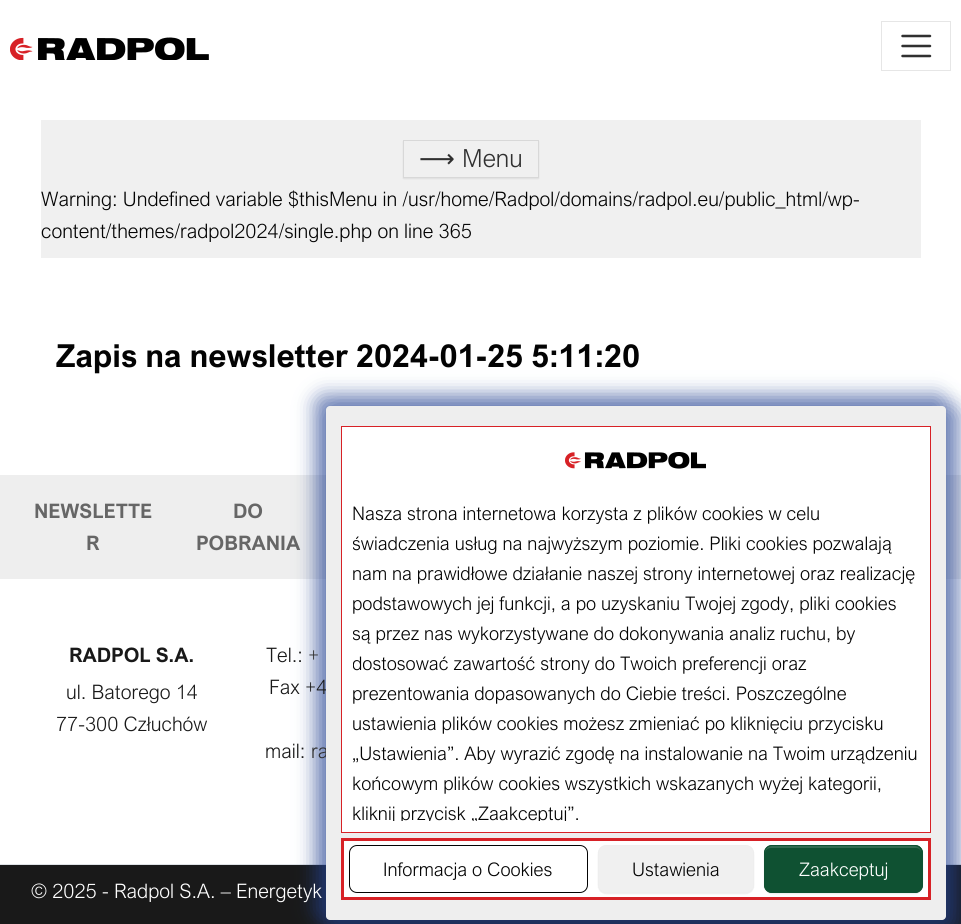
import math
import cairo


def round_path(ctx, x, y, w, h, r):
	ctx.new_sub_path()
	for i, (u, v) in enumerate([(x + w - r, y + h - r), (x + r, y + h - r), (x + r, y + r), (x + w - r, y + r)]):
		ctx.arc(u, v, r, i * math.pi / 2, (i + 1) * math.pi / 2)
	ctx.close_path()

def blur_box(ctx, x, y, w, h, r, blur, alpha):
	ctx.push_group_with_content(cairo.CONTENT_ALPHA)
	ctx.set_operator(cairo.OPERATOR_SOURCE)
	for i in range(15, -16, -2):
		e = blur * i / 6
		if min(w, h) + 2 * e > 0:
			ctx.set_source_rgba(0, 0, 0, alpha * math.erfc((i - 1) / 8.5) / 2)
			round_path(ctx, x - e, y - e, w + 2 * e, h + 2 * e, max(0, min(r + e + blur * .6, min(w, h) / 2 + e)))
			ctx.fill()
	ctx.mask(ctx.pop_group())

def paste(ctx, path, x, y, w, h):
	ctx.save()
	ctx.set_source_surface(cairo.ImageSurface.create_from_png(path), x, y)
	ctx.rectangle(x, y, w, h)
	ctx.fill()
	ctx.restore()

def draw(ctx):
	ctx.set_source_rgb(1, 1, 1)
	ctx.paint()
	paste(ctx, 'media/1.png', 10, 37, 199, 23)
	ctx.rectangle(881.5, 21.5, 69, 49)
	ctx.set_source_rgb(0.902, 0.902, 0.902)
	ctx.set_line_width(1)
	ctx.stroke()
	ctx.new_path()
	ctx.move_to(902.5, 36)
	ctx.line_to(930, 36)
	ctx.move_to(902.5, 46)
	ctx.line_to(930, 46)
	ctx.move_to(902.5, 56)
	ctx.line_to(930, 56)
	ctx.set_source_rgb(0.188, 0.188, 0.188)
	ctx.set_line_width(2.5)
	ctx.set_line_cap(cairo.LINE_CAP_ROUND)
	ctx.stroke()
	ctx.set_source_rgb(0.941, 0.941, 0.941)
	ctx.rectangle(41, 120, 880, 138)
	ctx.fill()
	ctx.save()
	ctx.set_fill_rule(cairo.FILL_RULE_EVEN_ODD)
	ctx.new_path()
	ctx.move_to(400, 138)
	ctx.line_to(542, 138)
	ctx.line_to(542, 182)
	ctx.line_to(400, 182)
	ctx.close_path()
	ctx.move_to(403, 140)
	ctx.line_to(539, 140)
	ctx.line_to(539, 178)
	ctx.line_to(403, 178)
	ctx.close_path()
	ctx.clip()
	ctx.set_source_rgb(0, 0, 0)
	blur_box(ctx, 403, 141, 136, 38, 0, 0.5, 0.07)
	ctx.restore()
	ctx.rectangle(403.5, 140.5, 135, 37)
	ctx.set_source_rgba(0, 0, 0, 0.1)
	ctx.set_line_width(1)
	ctx.set_line_cap(cairo.LINE_CAP_BUTT)
	ctx.stroke()
	ctx.select_font_face('DejaVu Sans')
	ctx.set_font_size(25)
	ctx.set_source_rgb(0.188, 0.188, 0.188)
	ctx.move_to(419, 167)
	ctx.show_text('⟶')
	ctx.select_font_face('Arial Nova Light')
	ctx.move_to(462, 167)
	ctx.show_text('Menu')
	ctx.set_font_size(20)
	ctx.set_source_rgb(0.012, 0.012, 0.012)
	ctx.move_to(41, 206)
	ctx.show_text('Warning: Undefined variable $thisMenu in /usr/home/Radpol/domains/radpol.eu/public_html/wp-')
	ctx.move_to(41, 238)
	ctx.show_text('content/themes/radpol2024/single.php on line 365')
	ctx.select_font_face('Arial Nova', cairo.FONT_SLANT_NORMAL, cairo.FONT_WEIGHT_BOLD)
	ctx.set_font_size(31.75)
	ctx.move_to(56, 367)
	ctx.show_text('Zapis na newsletter 2024-01-25 5:11:20')
	ctx.set_source_rgb(0.933, 0.933, 0.933)
	ctx.rectangle(0, 475, 961, 104)
	ctx.fill()
	ctx.set_font_size(20)
	ctx.set_source_rgb(0.4, 0.4, 0.4)
	for x, y, s in [
		(34, 518, 'NEWSLETTE'),
		(86, 550, 'R'),
		(233, 518, 'DO'),
		(196, 550, 'POBRANIA'),
	]:
		ctx.move_to(x, y)
		ctx.show_text(s)
	ctx.set_source_rgb(0.098, 0.098, 0.098)
	ctx.rectangle(0, 865, 961, 59)
	ctx.fill()
	ctx.set_source_rgb(0.871, 0.886, 0.902)
	ctx.rectangle(0, 864, 961, 1)
	ctx.fill()
	ctx.set_source_rgb(0.133, 0.255, 0.569)
	blur_box(ctx, 324, 404, 637, 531, 13, 9.5, 0.5)
	blur_box(ctx, 314, 394, 632, 526, 10, 9.5, 0.5)
	ctx.select_font_face('Arial Nova Light')
	ctx.set_source_rgb(0.098, 0.098, 0.098)
	ctx.move_to(269, 694)
	ctx.show_text('Fax +4')
	ctx.set_source_rgb(0.188, 0.188, 0.188)
	ctx.move_to(311, 758)
	ctx.show_text('ra')
	ctx.set_source_rgb(0.933, 0.933, 0.933)
	round_path(ctx, 326, 406, 620, 514, 4)
	ctx.fill()
	ctx.set_source_rgb(1, 1, 1)
	ctx.rectangle(341.5, 426.5, 589, 406)
	ctx.fill_preserve()
	ctx.set_source_rgb(0.843, 0.129, 0.149)
	ctx.stroke()
	paste(ctx, 'media/2.png', 565, 452, 141, 17)
	ctx.set_font_size(18.75)
	ctx.set_source_rgb(0.012, 0.012, 0.012)
	ctx.move_to(352, 520)
	ctx.show_text('Nasza strona internetowa korzysta z plików cookies w celu')
	ctx.save()
	ctx.rectangle(353, 498, 567, 323)
	ctx.clip()
	ctx.move_to(352, 550)
	ctx.show_text('świadczenia usług na najwyższym poziomie. Pliki cookies pozwalają')
	ctx.restore()
	ctx.move_to(352, 580)
	ctx.show_text('nam na prawidłowe działanie naszej strony internetowej oraz realizację')
	ctx.move_to(352, 610)
	ctx.show_text('podstawowych jej funkcji, a po uzyskaniu Twojej zgody, pliki cookies')
	ctx.save()
	ctx.rectangle(353, 498, 567, 323)
	ctx.clip()
	ctx.move_to(352, 640)
	ctx.show_text('są przez nas wykorzystywane do dokonywania analiz ruchu, by')
	ctx.move_to(352, 670)
	ctx.show_text('dostosować zawartość strony do Twoich preferencji oraz')
	ctx.restore()
	for x, y, s in [
		(352, 700, 'prezentowania dopasowanych do Ciebie treści. Poszczególne'),
		(352, 730, 'ustawienia plików cookies możesz zmieniać po kliknięciu przycisku'),
		(352, 760, '„Ustawienia”. Aby wyrazić zgodę na instalowanie na Twoim urządzeniu'),
		(352, 790, 'końcowym plików cookies wszystkich wskazanych wyżej kategorii,'),
	]:
		ctx.move_to(x, y)
		ctx.show_text(s)
	ctx.save()
	ctx.rectangle(353, 498, 567, 323)
	ctx.clip()
	ctx.move_to(352, 820)
	ctx.show_text('kliknij przycisk „Zaakceptuj”.')
	ctx.restore()
	ctx.set_source_rgb(1, 1, 1)
	ctx.rectangle(342.5, 839.5, 587, 59)
	ctx.fill_preserve()
	ctx.set_source_rgb(0.843, 0.129, 0.149)
	ctx.set_line_width(3)
	ctx.stroke()
	round_path(ctx, 349.5, 845.5, 238, 47, 7.5)
	ctx.set_source_rgb(0.012, 0.012, 0.012)
	ctx.set_line_width(1)
	ctx.stroke()
	ctx.move_to(383, 876)
	ctx.show_text('Informacja o Cookies')
	ctx.set_source_rgb(0, 0, 0)
	blur_box(ctx, 598, 846, 156, 48, 8, 0.5, 0.07)
	ctx.set_source_rgb(0.941, 0.941, 0.941)
	round_path(ctx, 598.5, 845.5, 155, 47, 7.5)
	ctx.fill_preserve()
	ctx.set_source_rgb(0.933, 0.933, 0.933)
	ctx.stroke()
	ctx.set_source_rgb(0.012, 0.012, 0.012)
	ctx.move_to(632, 876)
	ctx.show_text('Ustawienia')
	ctx.set_source_rgb(0, 0, 0)
	blur_box(ctx, 764, 846, 159, 48, 8, 0.5, 0.07)
	ctx.set_source_rgb(0.059, 0.318, 0.196)
	round_path(ctx, 764, 845, 159, 48, 8)
	ctx.fill()
	ctx.set_source_rgb(0.2, 0.42, 0.318)
	ctx.new_path()
	ctx.move_to(771, 848)
	ctx.line_to(916, 848)
	ctx.curve_to(919, 848, 921, 850, 921, 853)
	ctx.line_to(921, 852)
	ctx.curve_to(921, 849, 918, 846, 915, 846)
	ctx.line_to(771, 846)
	ctx.curve_to(768, 846, 765, 849, 765, 852)
	ctx.line_to(765, 853)
	ctx.curve_to(765, 850, 768, 848, 771, 848)
	ctx.close_path()
	ctx.fill()
	round_path(ctx, 764.5, 845.5, 158, 47, 7.5)
	ctx.set_source_rgb(0.059, 0.318, 0.196)
	ctx.stroke()
	ctx.set_source_rgb(1, 1, 1)
	ctx.move_to(799, 876)
	ctx.show_text('Zaakceptuj')
	ctx.select_font_face('Arial Nova', cairo.FONT_SLANT_NORMAL, cairo.FONT_WEIGHT_BOLD)
	ctx.set_font_size(20)
	ctx.set_source_rgb(0.098, 0.098, 0.098)
	ctx.move_to(69, 662)
	ctx.show_text('RADPOL S.A.')
	ctx.select_font_face('Arial Nova Light')
	for x, y, s in [
		(66, 699, 'ul. Batorego 14'),
		(56, 731, '77-300 Człuchów'),
		(266, 662, 'Tel.:'),
	]:
		ctx.move_to(x, y)
		ctx.show_text(s)
	ctx.set_source_rgb(0.188, 0.188, 0.188)
	ctx.move_to(308, 662)
	ctx.show_text('+')
	ctx.set_source_rgb(0.098, 0.098, 0.098)
	ctx.move_to(265, 758)
	ctx.show_text('mail:')
	ctx.set_source_rgb(1, 1, 1)
	ctx.move_to(31, 898)
	ctx.show_text('© 2025 - Radpol S.A. – Energetyk')


surface = cairo.ImageSurface(cairo.FORMAT_RGB24, 961, 924)
ctx = cairo.Context(surface)
options = cairo.FontOptions()
options.set_hint_metrics(cairo.HINT_METRICS_OFF)
options.set_hint_style(cairo.HINT_STYLE_NONE)
ctx.set_font_options(options)
ctx.set_miter_limit(4)
draw(ctx)
surface.write_to_png('image.png')
